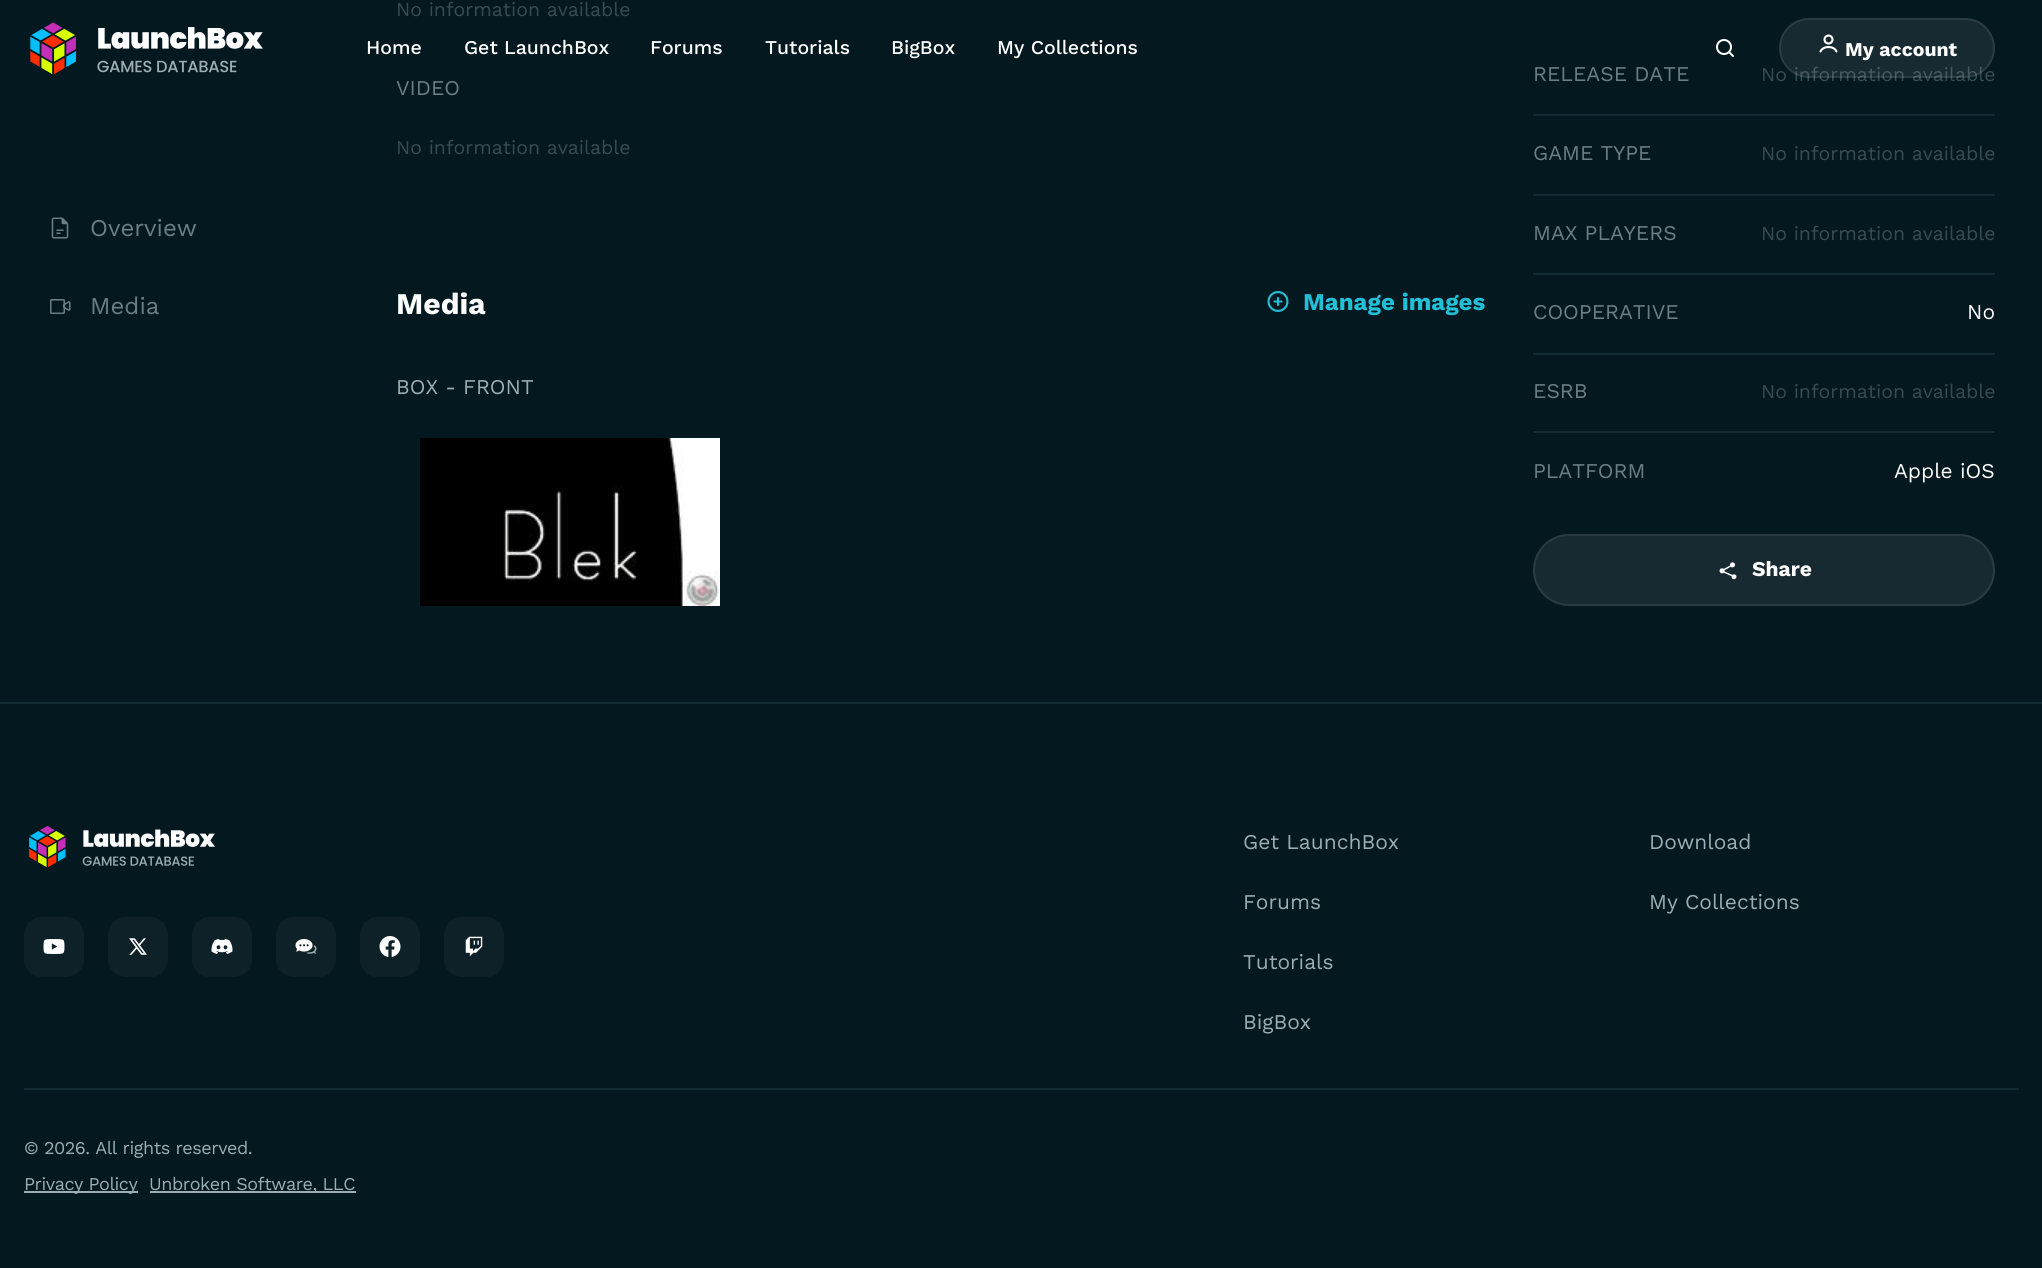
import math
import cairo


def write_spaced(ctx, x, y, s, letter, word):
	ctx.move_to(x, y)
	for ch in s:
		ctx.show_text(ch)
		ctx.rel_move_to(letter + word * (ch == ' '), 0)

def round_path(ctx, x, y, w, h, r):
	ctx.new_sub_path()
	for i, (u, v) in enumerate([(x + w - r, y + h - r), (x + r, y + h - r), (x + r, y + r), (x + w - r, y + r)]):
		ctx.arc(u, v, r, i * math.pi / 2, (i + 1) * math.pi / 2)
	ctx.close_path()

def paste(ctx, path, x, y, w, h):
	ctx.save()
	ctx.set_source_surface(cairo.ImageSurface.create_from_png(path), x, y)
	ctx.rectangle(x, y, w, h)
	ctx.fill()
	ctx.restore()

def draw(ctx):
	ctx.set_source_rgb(0.016, 0.094, 0.122)
	ctx.paint()
	paste(ctx, 'media/1.png', 51, 217, 18, 22)
	ctx.select_font_face('Work Sans')
	ctx.set_font_size(24)
	ctx.set_source_rgb(0.416, 0.494, 0.522)
	ctx.move_to(90, 236)
	ctx.show_text('Overview')
	paste(ctx, 'media/2.png', 50, 299, 21, 15)
	ctx.move_to(90, 314)
	ctx.show_text('Media')
	ctx.set_font_size(19.5)
	ctx.set_source_rgb(0.216, 0.294, 0.322)
	ctx.move_to(396, 16)
	ctx.show_text('No information available')
	ctx.set_font_size(21)
	ctx.set_source_rgb(0.416, 0.494, 0.522)
	ctx.move_to(396, 95)
	ctx.show_text('VIDEO')
	ctx.set_font_size(19.5)
	ctx.set_source_rgb(0.216, 0.294, 0.322)
	ctx.move_to(396, 154)
	ctx.show_text('No information available')
	ctx.select_font_face('Work Sans', cairo.FONT_SLANT_NORMAL, cairo.FONT_WEIGHT_BOLD)
	ctx.set_font_size(30)
	ctx.set_source_rgb(1, 1, 1)
	ctx.move_to(396, 314)
	ctx.show_text('Media')
	paste(ctx, 'media/3.png', 1267, 291, 22, 21)
	ctx.set_font_size(24)
	ctx.set_source_rgb(0.133, 0.749, 0.839)
	ctx.move_to(1303, 310)
	ctx.show_text('Manage images')
	ctx.select_font_face('Work Sans')
	ctx.set_font_size(21)
	ctx.set_source_rgb(0.616, 0.678, 0.698)
	ctx.move_to(396, 394)
	ctx.show_text('BOX - FRONT')
	paste(ctx, 'media/4.png', 420, 438, 300, 168)
	ctx.set_source_rgb(0.416, 0.494, 0.522)
	ctx.move_to(1533, 81)
	ctx.show_text('RELEASE DATE')
	ctx.set_font_size(19.5)
	ctx.set_source_rgb(0.216, 0.294, 0.322)
	ctx.move_to(1761, 81)
	ctx.show_text('No information available')
	ctx.set_source_rgb(0.078, 0.169, 0.2)
	ctx.rectangle(1533, 114, 462, 2)
	ctx.fill()
	ctx.set_font_size(21)
	ctx.set_source_rgb(0.416, 0.494, 0.522)
	ctx.move_to(1533, 160)
	ctx.show_text('GAME TYPE')
	ctx.set_font_size(19.5)
	ctx.set_source_rgb(0.216, 0.294, 0.322)
	ctx.move_to(1761, 160)
	ctx.show_text('No information available')
	ctx.set_source_rgb(0.078, 0.169, 0.2)
	ctx.rectangle(1533, 194, 462, 2)
	ctx.fill()
	ctx.set_font_size(21)
	ctx.set_source_rgb(0.416, 0.494, 0.522)
	ctx.move_to(1533, 240)
	ctx.show_text('MAX PLAYERS')
	ctx.set_font_size(19.5)
	ctx.set_source_rgb(0.216, 0.294, 0.322)
	ctx.move_to(1761, 240)
	ctx.show_text('No information available')
	ctx.set_source_rgb(0.078, 0.169, 0.2)
	ctx.rectangle(1533, 273, 462, 2)
	ctx.fill()
	ctx.set_font_size(21)
	ctx.set_source_rgb(0.416, 0.494, 0.522)
	ctx.move_to(1533, 319)
	ctx.show_text('COOPERATIVE')
	ctx.set_source_rgb(1, 1, 1)
	ctx.move_to(1967, 319)
	ctx.show_text('No')
	ctx.set_source_rgb(0.078, 0.169, 0.2)
	ctx.rectangle(1533, 353, 462, 2)
	ctx.fill()
	ctx.set_source_rgb(0.416, 0.494, 0.522)
	ctx.move_to(1533, 398)
	ctx.show_text('ESRB')
	ctx.set_font_size(19.5)
	ctx.set_source_rgb(0.216, 0.294, 0.322)
	ctx.move_to(1761, 398)
	ctx.show_text('No information available')
	ctx.set_source_rgb(0.078, 0.169, 0.2)
	ctx.rectangle(1533, 431, 462, 2)
	ctx.fill()
	ctx.set_font_size(21)
	ctx.set_source_rgb(0.416, 0.494, 0.522)
	ctx.move_to(1533, 478)
	ctx.show_text('PLATFORM')
	ctx.set_source_rgb(1, 1, 1)
	ctx.move_to(1894, 478)
	ctx.show_text('Apple iOS')
	ctx.set_source_rgb(0.094, 0.165, 0.192)
	round_path(ctx, 1533, 534, 462, 72, 36)
	ctx.fill()
	round_path(ctx, 1534, 535, 460, 70, 35)
	ctx.set_source_rgba(1, 1, 1, 0.08)
	ctx.stroke()
	paste(ctx, 'media/5.png', 1719, 562, 18, 18)
	ctx.select_font_face('Work Sans', cairo.FONT_SLANT_NORMAL, cairo.FONT_WEIGHT_BOLD)
	ctx.set_source_rgb(1, 1, 1)
	ctx.move_to(1752, 576)
	ctx.show_text('Share')
	paste(ctx, 'media/6.png', 30, 22, 233, 53)
	ctx.select_font_face('Work Sans Medium')
	ctx.set_font_size(19.5)
	for x, y, s in [
		(366, 54, 'Home'),
		(464, 54, 'Get LaunchBox'),
		(650, 54, 'Forums'),
		(765, 54, 'Tutorials'),
		(891, 54, 'BigBox'),
		(997, 54, 'My Collections'),
	]:
		ctx.move_to(x, y)
		ctx.show_text(s)
	paste(ctx, 'media/7.png', 1716, 39, 18, 18)
	ctx.set_source_rgba(1, 1, 1, 0.08)
	round_path(ctx, 1779, 18, 216, 60, 30)
	ctx.fill()
	round_path(ctx, 1780, 19, 214, 58, 29)
	ctx.stroke()
	paste(ctx, 'media/8.png', 1819, 34, 19, 19)
	ctx.select_font_face('Work Sans', cairo.FONT_SLANT_NORMAL, cairo.FONT_WEIGHT_BOLD)
	ctx.set_source_rgb(1, 1, 1)
	ctx.move_to(1845, 56)
	ctx.show_text('My account')
	ctx.set_source_rgb(0.078, 0.169, 0.2)
	ctx.rectangle(0, 702, 2042, 2)
	ctx.fill()
	paste(ctx, 'media/9.png', 28, 826, 187, 41)
	ctx.set_source_rgb(0.055, 0.129, 0.157)
	round_path(ctx, 24, 917, 60, 60, 18)
	ctx.fill()
	paste(ctx, 'media/10.png', 43, 939, 22, 15)
	round_path(ctx, 108, 917, 60, 60, 18)
	ctx.fill()
	paste(ctx, 'media/11.png', 129, 938, 18, 17)
	round_path(ctx, 192, 917, 60, 60, 18)
	ctx.fill()
	paste(ctx, 'media/12.png', 211, 939, 22, 15)
	round_path(ctx, 276, 917, 60, 60, 18)
	ctx.fill()
	paste(ctx, 'media/13.png', 295, 939, 22, 15)
	round_path(ctx, 360, 917, 60, 60, 18)
	ctx.fill()
	paste(ctx, 'media/14.png', 379, 936, 22, 21)
	round_path(ctx, 444, 917, 60, 60, 18)
	ctx.fill()
	paste(ctx, 'media/15.png', 465, 936, 18, 21)
	ctx.select_font_face('Work Sans')
	ctx.set_font_size(21)
	ctx.set_source_rgb(0.616, 0.678, 0.698)
	for x, y, s in [
		(1243, 849, 'Get LaunchBox'),
		(1243, 909, 'Forums'),
		(1243, 969, 'Tutorials'),
		(1243, 1029, 'BigBox'),
		(1649, 849, 'Download'),
		(1649, 909, 'My Collections'),
	]:
		ctx.move_to(x, y)
		ctx.show_text(s)
	ctx.set_source_rgb(0.078, 0.169, 0.2)
	ctx.rectangle(24, 1088, 1995, 2)
	ctx.fill()
	ctx.set_font_size(18)
	ctx.set_source_rgb(0.616, 0.678, 0.698)
	write_spaced(ctx, 24, 1154, '© 2026. All rights reserved.', -0.45, 0)
	ctx.rectangle(24, 1191, 114, 2)
	ctx.fill()
	write_spaced(ctx, 24, 1190, 'Privacy Policy', -0.45, 0)
	ctx.rectangle(150, 1191, 206, 2)
	ctx.fill()
	write_spaced(ctx, 149, 1190, 'Unbroken Software, LLC', -0.45, 0)


surface = cairo.ImageSurface(cairo.FORMAT_RGB24, 2042, 1268)
ctx = cairo.Context(surface)
options = cairo.FontOptions()
options.set_hint_metrics(cairo.HINT_METRICS_OFF)
options.set_hint_style(cairo.HINT_STYLE_NONE)
ctx.set_font_options(options)
ctx.set_miter_limit(4)
draw(ctx)
surface.write_to_png('image.png')
